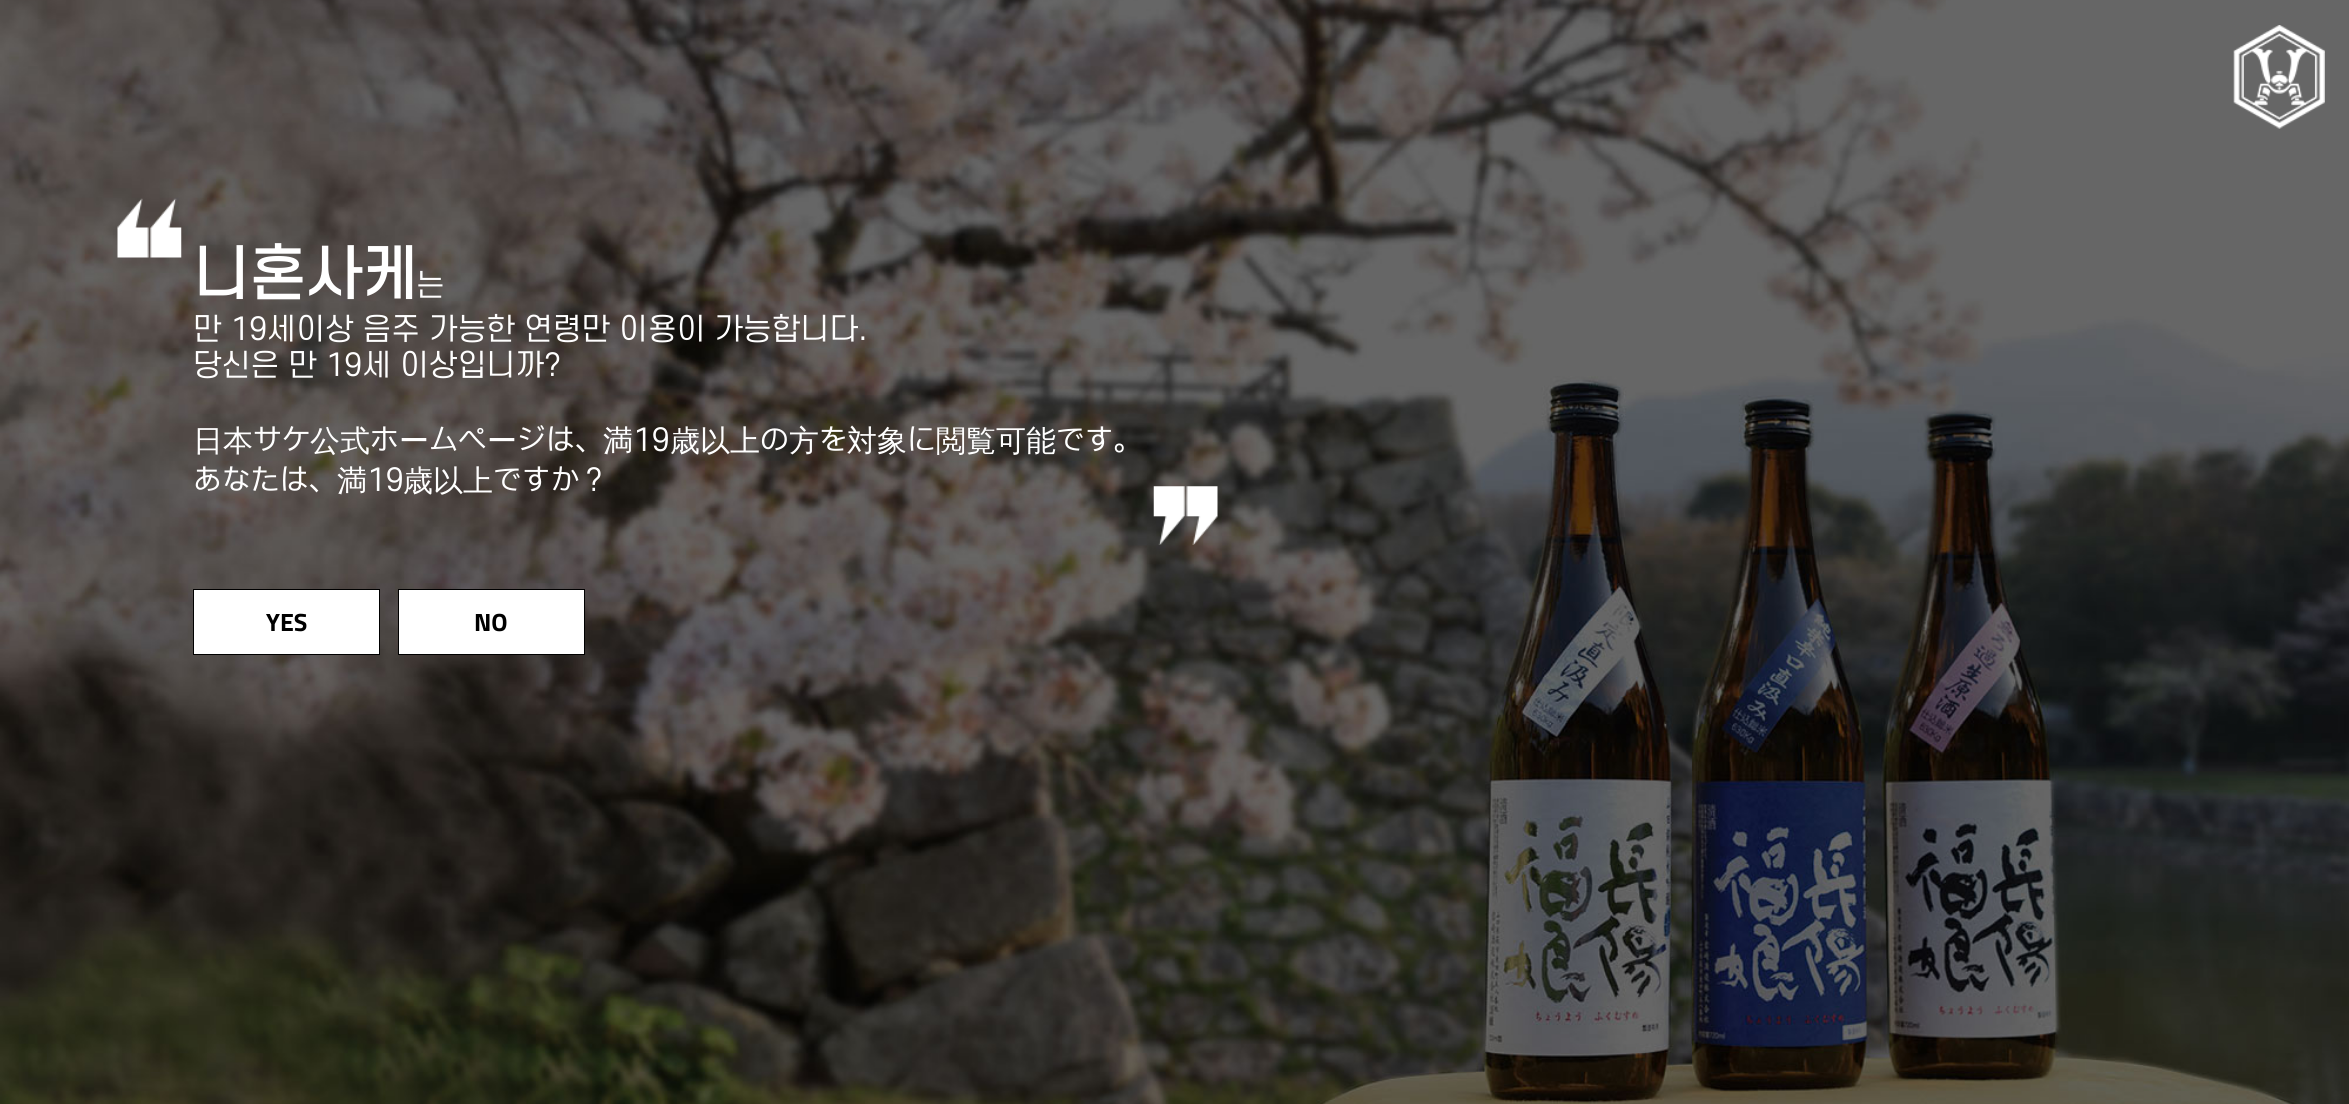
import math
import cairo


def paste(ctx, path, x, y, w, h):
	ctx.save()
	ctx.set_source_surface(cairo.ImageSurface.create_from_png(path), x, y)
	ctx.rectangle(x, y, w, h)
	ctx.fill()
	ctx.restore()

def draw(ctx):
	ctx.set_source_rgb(1, 1, 1)
	ctx.paint()
	paste(ctx, 'media/1.png', 0, 0, 2349, 1104)
	paste(ctx, 'media/2.png', 2233, 25, 92, 104)
	paste(ctx, 'media/3.png', 117, 198, 65, 60)
	ctx.select_font_face('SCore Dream', cairo.FONT_SLANT_NORMAL, cairo.FONT_WEIGHT_BOLD)
	ctx.set_font_size(58.5)
	ctx.set_source_rgb(1, 1, 1)
	ctx.move_to(193, 296)
	ctx.show_text('니혼사케')
	ctx.select_font_face('SCore Dream')
	ctx.set_font_size(30)
	for x, y, s in [
		(416, 296, '는'),
		(193, 340, '만 19세이상 음주 가능한 연령만 이용이 가능합니다.'),
		(193, 376, '당신은 만 19세 이상입니까?'),
	]:
		ctx.move_to(x, y)
		ctx.show_text(s)
	ctx.select_font_face('WenQuanYi Zen Hei Medium')
	ctx.move_to(193, 451)
	ctx.show_text('日本')
	ctx.select_font_face('SCore Dream')
	ctx.move_to(253, 451)
	ctx.show_text('サケ')
	ctx.select_font_face('WenQuanYi Zen Hei Medium')
	ctx.move_to(310, 451)
	ctx.show_text('公式')
	ctx.select_font_face('SCore Dream')
	ctx.move_to(370, 451)
	ctx.show_text('ホ')
	ctx.select_font_face('WenQuanYi Zen Hei Medium')
	ctx.move_to(399, 451)
	ctx.show_text('ー')
	ctx.select_font_face('SCore Dream')
	ctx.move_to(429, 451)
	ctx.show_text('ムペ')
	ctx.select_font_face('WenQuanYi Zen Hei Medium')
	ctx.move_to(487, 451)
	ctx.show_text('ー')
	ctx.select_font_face('SCore Dream')
	ctx.move_to(517, 451)
	ctx.show_text('ジは、')
	ctx.select_font_face('WenQuanYi Zen Hei Medium')
	ctx.move_to(603, 451)
	ctx.show_text('満')
	ctx.select_font_face('SCore Dream')
	ctx.move_to(633, 451)
	ctx.show_text('19')
	ctx.select_font_face('WenQuanYi Zen Hei Medium')
	ctx.move_to(670, 451)
	ctx.show_text('歳以上')
	ctx.select_font_face('SCore Dream')
	ctx.move_to(760, 451)
	ctx.show_text('の')
	ctx.select_font_face('WenQuanYi Zen Hei Medium')
	ctx.move_to(789, 451)
	ctx.show_text('方')
	ctx.select_font_face('SCore Dream')
	ctx.move_to(819, 451)
	ctx.show_text('を')
	ctx.select_font_face('WenQuanYi Zen Hei Medium')
	ctx.move_to(847, 451)
	ctx.show_text('対象')
	ctx.select_font_face('SCore Dream')
	ctx.move_to(907, 451)
	ctx.show_text('に')
	ctx.select_font_face('WenQuanYi Zen Hei Medium')
	ctx.move_to(936, 451)
	ctx.show_text('閲覧可能')
	ctx.select_font_face('SCore Dream')
	ctx.move_to(1056, 451)
	ctx.show_text('です。')
	ctx.move_to(193, 491)
	ctx.show_text('あなたは、')
	ctx.select_font_face('WenQuanYi Zen Hei Medium')
	ctx.move_to(337, 491)
	ctx.show_text('満')
	ctx.select_font_face('SCore Dream')
	ctx.move_to(367, 491)
	ctx.show_text('19')
	ctx.select_font_face('WenQuanYi Zen Hei Medium')
	ctx.move_to(403, 491)
	ctx.show_text('歳以上')
	ctx.select_font_face('SCore Dream')
	ctx.move_to(493, 491)
	ctx.show_text('ですか？')
	paste(ctx, 'media/4.png', 1153, 486, 65, 59)
	ctx.rectangle(193.5, 589.5, 186, 65)
	ctx.fill_preserve()
	ctx.set_source_rgb(0, 0, 0)
	ctx.set_line_width(1)
	ctx.stroke()
	ctx.select_font_face('Titillium Web', cairo.FONT_SLANT_NORMAL, cairo.FONT_WEIGHT_BOLD)
	ctx.set_font_size(25)
	ctx.move_to(266, 631)
	ctx.show_text('YES')
	ctx.set_source_rgb(1, 1, 1)
	ctx.rectangle(398.5, 589.5, 186, 65)
	ctx.fill_preserve()
	ctx.set_source_rgb(0, 0, 0)
	ctx.stroke()
	ctx.move_to(474, 631)
	ctx.show_text('NO')


surface = cairo.ImageSurface(cairo.FORMAT_RGB24, 2349, 1104)
ctx = cairo.Context(surface)
options = cairo.FontOptions()
options.set_hint_metrics(cairo.HINT_METRICS_OFF)
options.set_hint_style(cairo.HINT_STYLE_NONE)
ctx.set_font_options(options)
ctx.set_miter_limit(4)
draw(ctx)
surface.write_to_png('image.png')
